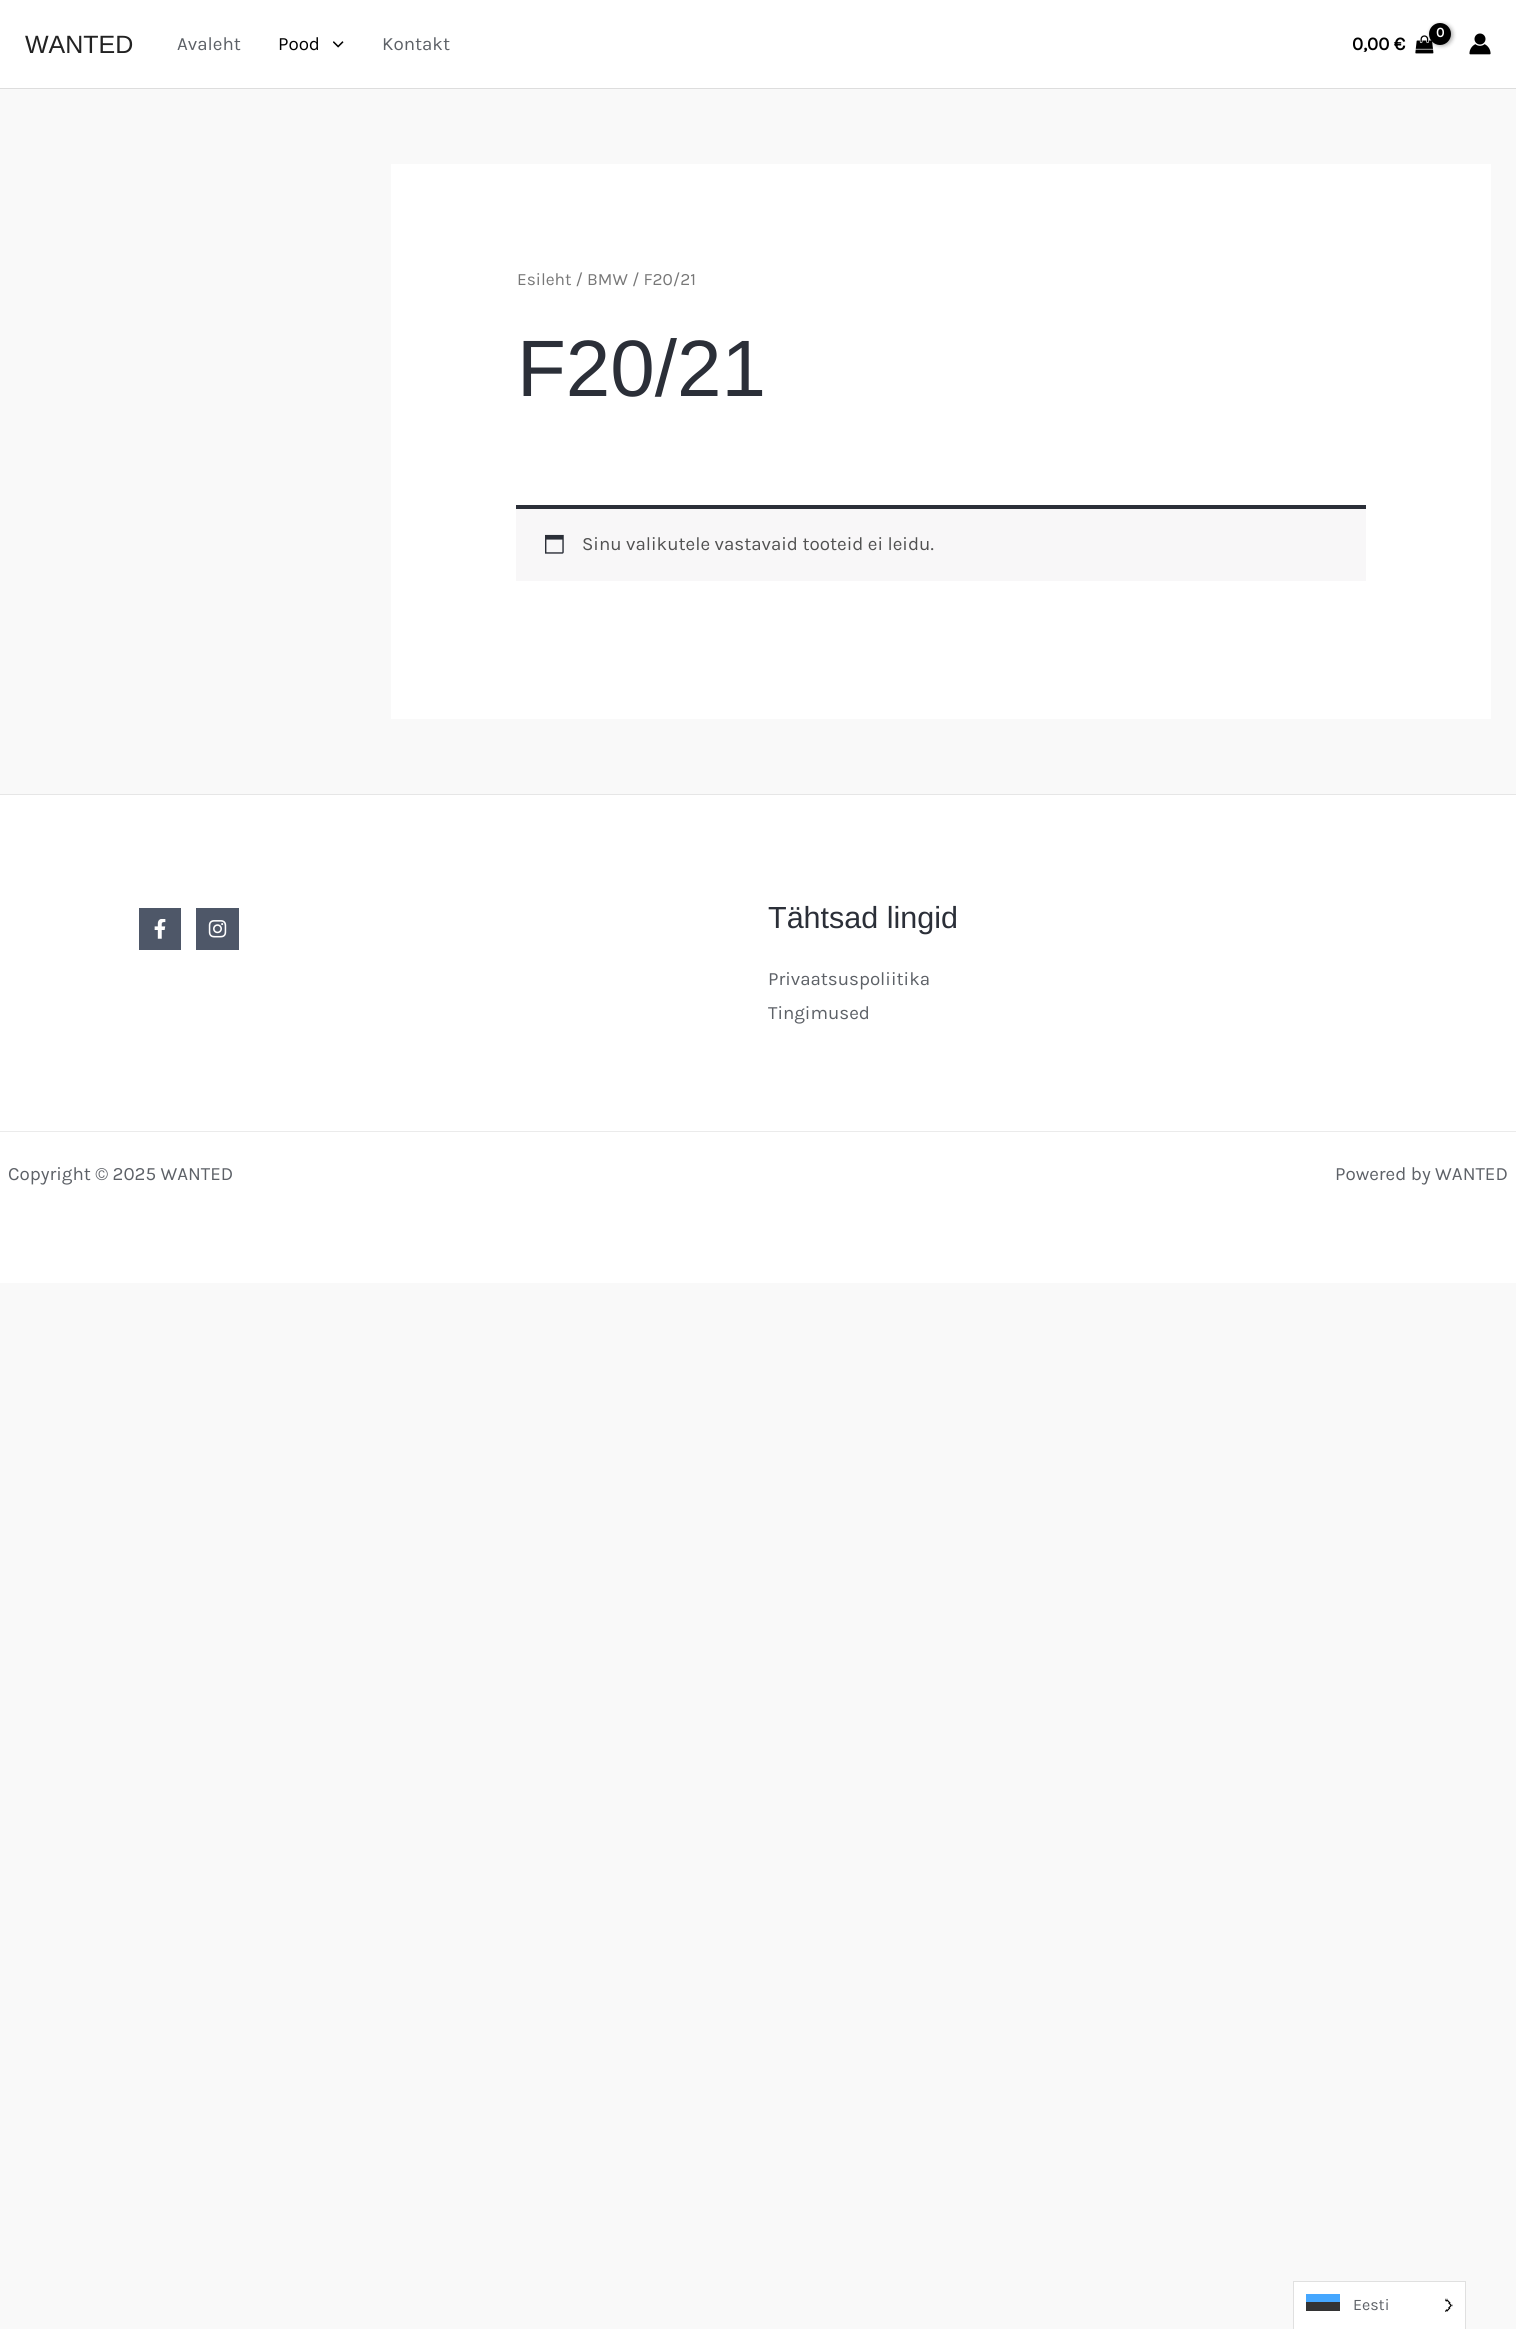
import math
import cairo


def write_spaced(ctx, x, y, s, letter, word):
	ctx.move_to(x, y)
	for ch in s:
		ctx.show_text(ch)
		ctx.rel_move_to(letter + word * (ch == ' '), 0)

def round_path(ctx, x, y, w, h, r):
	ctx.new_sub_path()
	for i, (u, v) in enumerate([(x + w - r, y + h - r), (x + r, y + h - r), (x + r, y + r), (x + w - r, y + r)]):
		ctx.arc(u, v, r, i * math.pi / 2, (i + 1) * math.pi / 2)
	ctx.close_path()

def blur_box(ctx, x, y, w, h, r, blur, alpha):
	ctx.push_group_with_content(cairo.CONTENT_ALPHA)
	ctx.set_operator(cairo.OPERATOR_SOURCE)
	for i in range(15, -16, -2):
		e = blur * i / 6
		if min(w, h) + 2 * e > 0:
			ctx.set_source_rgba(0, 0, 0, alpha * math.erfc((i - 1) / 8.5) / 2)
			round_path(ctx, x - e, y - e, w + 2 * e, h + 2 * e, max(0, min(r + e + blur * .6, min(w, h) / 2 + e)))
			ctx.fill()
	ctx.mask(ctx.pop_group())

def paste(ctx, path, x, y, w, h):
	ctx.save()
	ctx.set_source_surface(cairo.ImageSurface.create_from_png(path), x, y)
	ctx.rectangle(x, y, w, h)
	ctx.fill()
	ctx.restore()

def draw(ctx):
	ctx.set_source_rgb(0.976, 0.976, 0.976)
	ctx.paint()
	ctx.set_source_rgb(1, 1, 1)
	ctx.rectangle(0, 0, 1516, 88)
	ctx.fill()
	ctx.set_source_rgb(0.867, 0.867, 0.867)
	ctx.rectangle(0, 88, 1516, 1)
	ctx.fill()
	ctx.select_font_face('Liberation Sans')
	ctx.set_font_size(25)
	ctx.set_source_rgb(0.133, 0.133, 0.133)
	ctx.move_to(25, 53)
	ctx.show_text('WANTED')
	ctx.select_font_face('Karla')
	ctx.set_font_size(18.75)
	ctx.set_source_rgb(0.365, 0.38, 0.404)
	ctx.move_to(177, 50)
	ctx.show_text('Avaleht')
	ctx.set_source_rgb(0, 0, 0)
	ctx.move_to(278, 50)
	ctx.show_text('Pood')
	paste(ctx, 'media/1.png', 333, 41, 11, 7)
	ctx.set_source_rgb(0.365, 0.38, 0.404)
	ctx.move_to(382, 50)
	ctx.show_text('Kontakt')
	paste(ctx, 'media/2.png', 1415, 35, 19, 19)
	ctx.set_source_rgb(0, 0, 0)
	blur_box(ctx, 1430, 24, 23, 22, 11, 2, 0.3)
	ctx.set_source_rgb(0, 0, 0)
	ctx.arc(1440, 34, 11, 0, 2 * math.pi)
	ctx.fill()
	ctx.select_font_face('Karla', cairo.FONT_SLANT_NORMAL, cairo.FONT_WEIGHT_BOLD)
	ctx.set_font_size(14)
	ctx.set_source_rgb(1, 1, 1)
	write_spaced(ctx, 1436, 37, '0', -1, 0)
	ctx.set_font_size(18.75)
	ctx.set_source_rgb(0, 0, 0)
	ctx.move_to(1352, 50)
	ctx.show_text('0,00 €')
	paste(ctx, 'media/3.png', 1469, 33, 22, 22)
	ctx.set_source_rgb(1, 1, 1)
	ctx.rectangle(391, 164, 1100, 555)
	ctx.fill()
	ctx.select_font_face('Karla')
	ctx.set_font_size(17.25)
	ctx.set_source_rgb(0.467, 0.467, 0.467)
	ctx.move_to(517, 285)
	ctx.show_text('Esileht / BMW / F20/21')
	ctx.select_font_face('Liberation Sans')
	ctx.set_font_size(80)
	ctx.set_source_rgb(0.169, 0.184, 0.22)
	ctx.move_to(517, 396)
	ctx.show_text('F20/21')
	ctx.set_source_rgb(0.969, 0.965, 0.969)
	ctx.rectangle(516, 509, 850, 72)
	ctx.fill()
	ctx.set_source_rgb(0.169, 0.184, 0.22)
	ctx.rectangle(516, 505, 850, 4)
	ctx.fill()
	paste(ctx, 'media/4.png', 545, 534, 19, 20)
	ctx.select_font_face('Karla')
	ctx.set_font_size(18.75)
	ctx.set_source_rgb(0.318, 0.318, 0.318)
	ctx.move_to(582, 550)
	ctx.show_text('Sinu valikutele vastavaid tooteid ei leidu.')
	ctx.set_source_rgb(1, 1, 1)
	ctx.rectangle(0, 795, 1516, 488)
	ctx.fill()
	ctx.set_source_rgb(0.902, 0.902, 0.902)
	ctx.rectangle(0, 794, 1516, 1)
	ctx.fill()
	ctx.set_source_rgb(0.306, 0.341, 0.408)
	ctx.rectangle(139, 908, 42, 42)
	ctx.fill()
	paste(ctx, 'media/5.png', 154, 919, 12, 20)
	ctx.rectangle(196, 908, 43, 42)
	ctx.fill()
	paste(ctx, 'media/6.png', 208, 920, 19, 18)
	ctx.select_font_face('Liberation Sans')
	ctx.set_font_size(30.5)
	ctx.set_source_rgb(0.169, 0.184, 0.22)
	ctx.move_to(768, 928)
	ctx.show_text('Tähtsad lingid')
	ctx.select_font_face('Karla')
	ctx.set_font_size(18.75)
	ctx.set_source_rgb(0.365, 0.38, 0.404)
	ctx.move_to(768, 985)
	ctx.show_text('Privaatsuspoliitika')
	ctx.move_to(768, 1019)
	ctx.show_text('Tingimused')
	ctx.set_source_rgb(0.918, 0.918, 0.918)
	ctx.rectangle(0, 1131, 1516, 1)
	ctx.fill()
	ctx.set_source_rgb(0.365, 0.38, 0.404)
	ctx.move_to(8, 1180)
	ctx.show_text('Copyright © 2025 WANTED')
	ctx.move_to(1335, 1180)
	ctx.show_text('Powered by WANTED')
	ctx.set_source_rgb(1, 1, 1)
	ctx.rectangle(1293.5, 2281.5, 172, 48)
	ctx.fill_preserve()
	ctx.set_source_rgb(0.878, 0.878, 0.878)
	ctx.set_line_width(1)
	ctx.stroke()
	ctx.set_source_rgb(0.271, 0.655, 1)
	ctx.rectangle(1306, 2294, 34, 8)
	ctx.fill()
	ctx.set_source_rgb(0.2, 0.2, 0.204)
	ctx.rectangle(1306, 2302, 34, 9)
	ctx.fill()
	ctx.set_font_size(16)
	ctx.set_source_rgb(0.365, 0.38, 0.404)
	ctx.move_to(1353, 2310)
	ctx.show_text('Eesti')
	paste(ctx, 'media/7.png', 1445, 2298, 8, 14)


surface = cairo.ImageSurface(cairo.FORMAT_RGB24, 1516, 2329)
ctx = cairo.Context(surface)
options = cairo.FontOptions()
options.set_hint_metrics(cairo.HINT_METRICS_OFF)
options.set_hint_style(cairo.HINT_STYLE_NONE)
ctx.set_font_options(options)
ctx.set_miter_limit(4)
draw(ctx)
surface.write_to_png('image.png')
